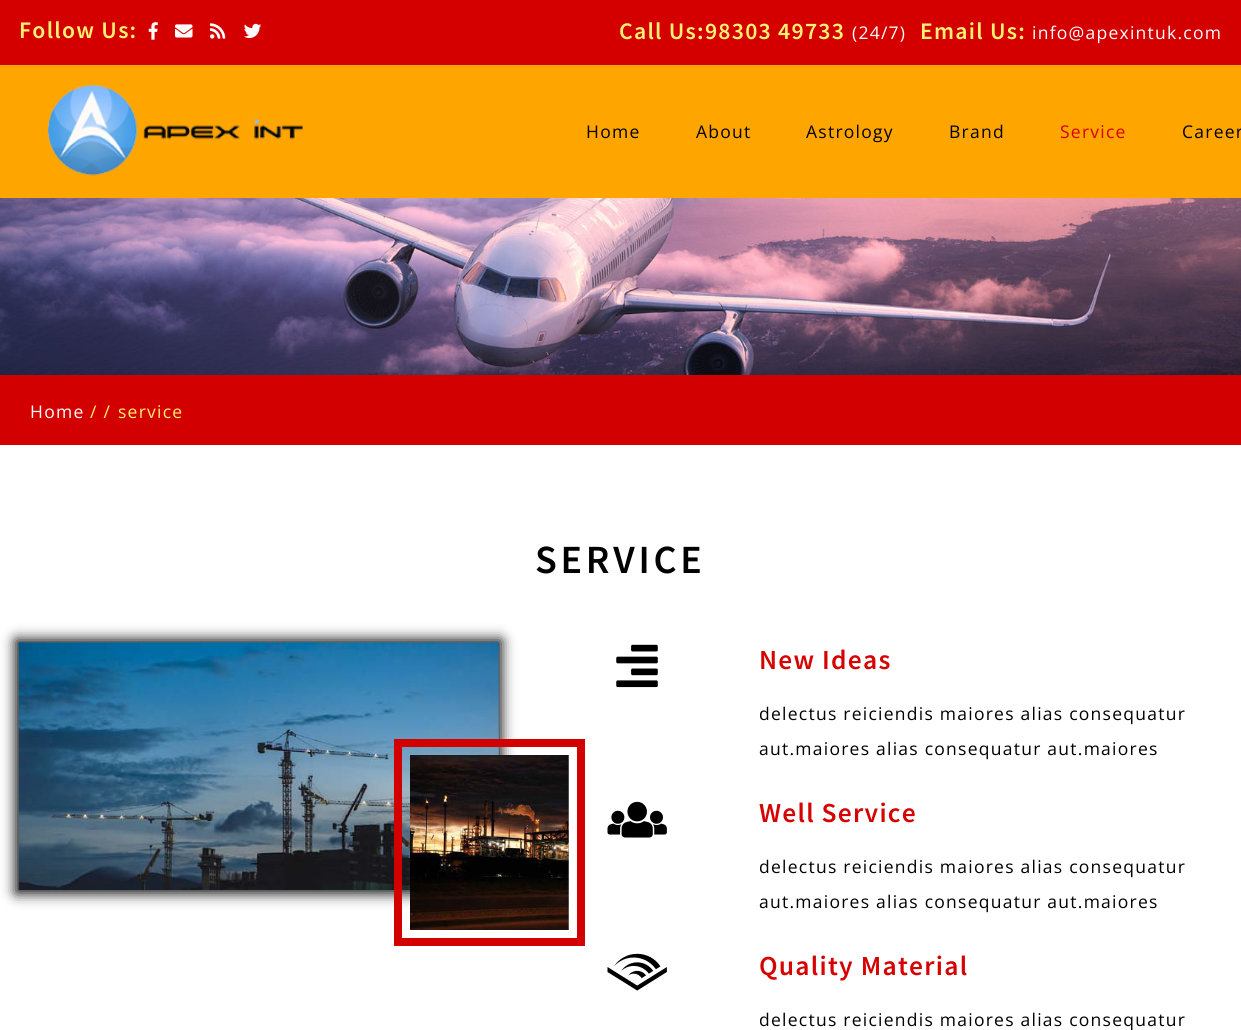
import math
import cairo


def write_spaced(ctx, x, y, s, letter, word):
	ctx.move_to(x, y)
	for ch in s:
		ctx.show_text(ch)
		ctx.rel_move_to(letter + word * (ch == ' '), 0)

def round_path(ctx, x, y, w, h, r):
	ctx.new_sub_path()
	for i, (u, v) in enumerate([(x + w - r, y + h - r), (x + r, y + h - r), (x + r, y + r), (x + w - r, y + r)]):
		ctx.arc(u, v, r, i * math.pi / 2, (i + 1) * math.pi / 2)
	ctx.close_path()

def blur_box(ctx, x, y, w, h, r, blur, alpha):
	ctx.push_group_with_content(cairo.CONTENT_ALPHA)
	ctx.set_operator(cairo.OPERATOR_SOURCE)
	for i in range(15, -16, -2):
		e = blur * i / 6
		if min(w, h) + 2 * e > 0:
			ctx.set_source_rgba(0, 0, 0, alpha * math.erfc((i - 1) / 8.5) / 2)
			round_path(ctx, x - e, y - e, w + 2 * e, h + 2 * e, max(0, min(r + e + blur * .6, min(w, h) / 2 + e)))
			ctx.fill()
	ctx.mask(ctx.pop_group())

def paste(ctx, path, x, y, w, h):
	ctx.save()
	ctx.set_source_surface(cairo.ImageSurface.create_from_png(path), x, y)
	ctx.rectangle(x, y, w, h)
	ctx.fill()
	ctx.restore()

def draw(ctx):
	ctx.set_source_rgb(1, 1, 1)
	ctx.paint()
	ctx.set_source_rgb(0.831, 0, 0)
	ctx.rectangle(0, 0, 1241, 65)
	ctx.fill()
	ctx.select_font_face('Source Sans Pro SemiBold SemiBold')
	ctx.set_font_size(23.75)
	ctx.set_source_rgb(1, 0.945, 0.447)
	write_spaced(ctx, 19, 38, 'Follow Us:', 1.25, 0)
	paste(ctx, 'media/1.png', 148, 22, 10, 18)
	paste(ctx, 'media/2.png', 175, 24, 18, 14)
	paste(ctx, 'media/3.png', 210, 23, 16, 16)
	paste(ctx, 'media/4.png', 244, 23, 18, 16)
	write_spaced(ctx, 619, 39, 'Call Us:98303 49733', 1.25, 0)
	ctx.select_font_face('Open Sans')
	ctx.set_font_size(17.5)
	ctx.set_source_rgb(1, 1, 1)
	write_spaced(ctx, 852, 39, '(24/7)', 1.25, 0)
	ctx.select_font_face('Source Sans Pro SemiBold SemiBold')
	ctx.set_font_size(23.75)
	ctx.set_source_rgb(1, 0.945, 0.447)
	write_spaced(ctx, 920, 39, 'Email Us:', 1.25, 0)
	ctx.select_font_face('Open Sans')
	ctx.set_font_size(17.5)
	ctx.set_source_rgb(1, 1, 1)
	write_spaced(ctx, 1032, 39, 'info@apexintuk.com', 1.25, 0)
	ctx.set_source_rgb(1, 0.647, 0)
	ctx.rectangle(0, 65, 1241, 133)
	ctx.fill()
	paste(ctx, 'media/5.png', 47, 85, 256, 91)
	ctx.set_source_rgb(0, 0, 0)
	for x, y, s in [
		(586, 138, 'Home'),
		(696, 138, 'About'),
		(806, 138, 'Astrology'),
		(949, 138, 'Brand'),
	]:
		write_spaced(ctx, x, y, s, 1.25, 0)
	ctx.set_source_rgb(0.835, 0.012, 0.008)
	write_spaced(ctx, 1060, 138, 'Service', 1.25, 0)
	ctx.set_source_rgb(0, 0, 0)
	write_spaced(ctx, 1182, 138, 'Career', 1.25, 0)
	paste(ctx, 'media/6.png', 0, 198, 1241, 177)
	ctx.set_source_rgb(0.827, 0, 0)
	ctx.rectangle(0, 375, 1241, 70)
	ctx.fill()
	ctx.set_source_rgb(1, 1, 1)
	write_spaced(ctx, 30, 418, 'Home', 1.25, 0)
	ctx.set_source_rgb(1, 0.945, 0.447)
	write_spaced(ctx, 90, 418, '/ /', 1.25, 0)
	write_spaced(ctx, 118, 418, 'service', 1.25, 0)
	ctx.select_font_face('Source Sans Pro SemiBold SemiBold')
	ctx.set_font_size(40)
	ctx.set_source_rgb(0, 0, 0)
	write_spaced(ctx, 535, 573, 'SERVICE', 3.75, 0)
	ctx.set_source_rgb(0, 0, 0)
	blur_box(ctx, 16, 640, 485, 253, 0, 7, 1)
	paste(ctx, 'media/7.png', 18, 642, 481, 248)
	ctx.rectangle(398, 743, 183, 199)
	ctx.set_source_rgb(0.827, 0, 0)
	ctx.set_line_width(8)
	ctx.stroke()
	paste(ctx, 'media/8.png', 410, 755, 159, 175)
	paste(ctx, 'media/9.png', 616, 644, 42, 44)
	ctx.set_font_size(27.5)
	ctx.set_source_rgb(0.835, 0.012, 0.008)
	write_spaced(ctx, 759, 669, 'New Ideas', 1.25, 0)
	ctx.select_font_face('Open Sans')
	ctx.set_font_size(17.5)
	ctx.set_source_rgb(0, 0, 0)
	write_spaced(ctx, 759, 720, 'delectus reiciendis maiores alias consequatur', 1.25, 0)
	write_spaced(ctx, 759, 755, 'aut.maiores alias consequatur aut.maiores', 1.25, 0)
	paste(ctx, 'media/10.png', 607, 801, 60, 37)
	ctx.select_font_face('Source Sans Pro SemiBold SemiBold')
	ctx.set_font_size(27.5)
	ctx.set_source_rgb(0.835, 0.012, 0.008)
	write_spaced(ctx, 759, 822, 'Well Service', 1.25, 0)
	ctx.select_font_face('Open Sans')
	ctx.set_font_size(17.5)
	ctx.set_source_rgb(0, 0, 0)
	write_spaced(ctx, 759, 873, 'delectus reiciendis maiores alias consequatur', 1.25, 0)
	write_spaced(ctx, 759, 908, 'aut.maiores alias consequatur aut.maiores', 1.25, 0)
	paste(ctx, 'media/11.png', 607, 953, 60, 38)
	ctx.select_font_face('Source Sans Pro SemiBold SemiBold')
	ctx.set_font_size(27.5)
	ctx.set_source_rgb(0.835, 0.012, 0.008)
	write_spaced(ctx, 759, 975, 'Quality Material', 1.25, 0)
	ctx.select_font_face('Open Sans')
	ctx.set_font_size(17.5)
	ctx.set_source_rgb(0, 0, 0)
	write_spaced(ctx, 759, 1026, 'delectus reiciendis maiores alias consequatur', 1.25, 0)


surface = cairo.ImageSurface(cairo.FORMAT_RGB24, 1241, 1030)
ctx = cairo.Context(surface)
options = cairo.FontOptions()
options.set_hint_metrics(cairo.HINT_METRICS_OFF)
options.set_hint_style(cairo.HINT_STYLE_NONE)
ctx.set_font_options(options)
ctx.set_miter_limit(4)
draw(ctx)
surface.write_to_png('image.png')
